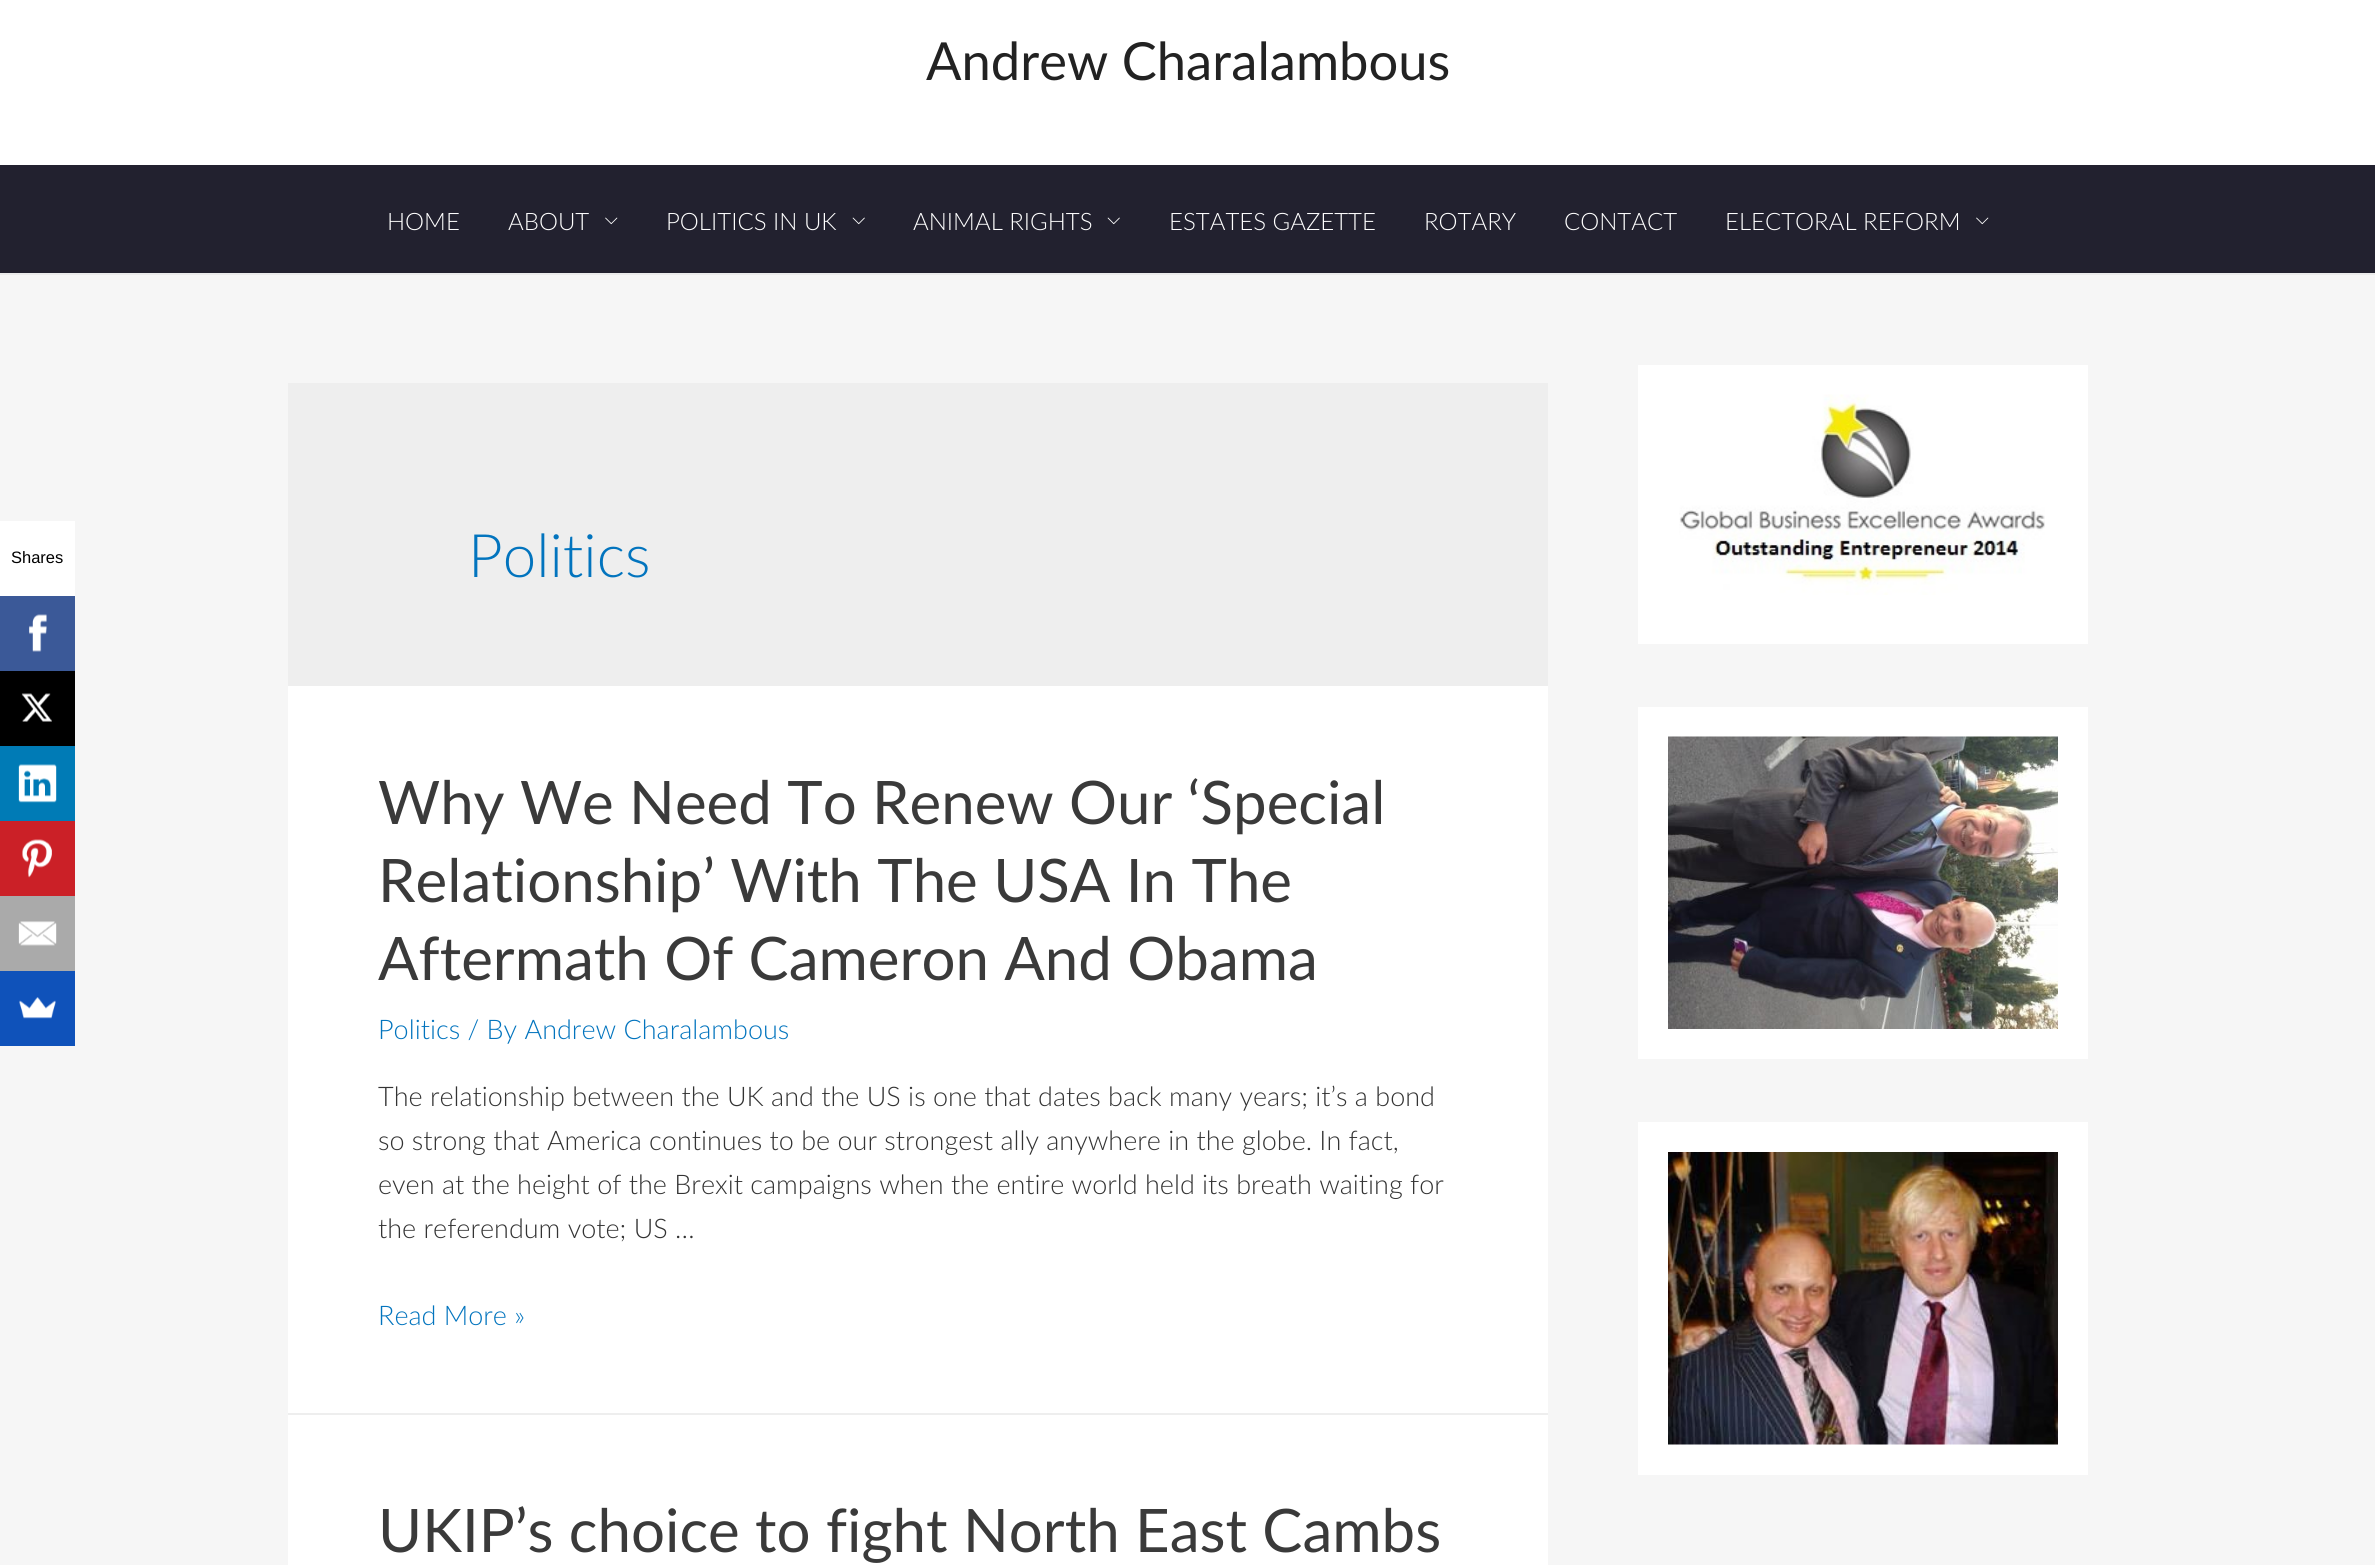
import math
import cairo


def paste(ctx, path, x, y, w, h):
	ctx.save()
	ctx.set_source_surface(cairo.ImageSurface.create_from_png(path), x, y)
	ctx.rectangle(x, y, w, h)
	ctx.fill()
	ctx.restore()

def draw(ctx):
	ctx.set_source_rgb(0.961, 0.961, 0.961)
	ctx.paint()
	ctx.set_source_rgb(1, 1, 1)
	ctx.rectangle(0, 521, 75, 75)
	ctx.fill()
	ctx.select_font_face('Liberation Sans')
	ctx.set_font_size(16.5)
	ctx.set_source_rgb(0, 0, 0)
	ctx.move_to(11, 563)
	ctx.show_text('Shares')
	ctx.set_source_rgb(0.231, 0.349, 0.596)
	ctx.rectangle(0, 596, 75, 75)
	ctx.fill()
	paste(ctx, 'media/1.png', 29, 614, 18, 38)
	ctx.set_source_rgb(0, 0, 0)
	ctx.rectangle(0, 671, 75, 75)
	ctx.fill()
	paste(ctx, 'media/2.png', 21, 693, 31, 29)
	ctx.set_source_rgb(0, 0.482, 0.714)
	ctx.rectangle(0, 746, 75, 75)
	ctx.fill()
	paste(ctx, 'media/3.png', 18, 764, 39, 39)
	ctx.set_source_rgb(0.796, 0.125, 0.153)
	ctx.rectangle(0, 821, 75, 75)
	ctx.fill()
	paste(ctx, 'media/4.png', 22, 839, 30, 39)
	ctx.set_source_rgb(0.667, 0.667, 0.667)
	ctx.rectangle(0, 896, 75, 75)
	ctx.fill()
	paste(ctx, 'media/5.png', 18, 921, 39, 25)
	ctx.set_source_rgb(0.059, 0.322, 0.729)
	ctx.rectangle(0, 971, 75, 75)
	ctx.fill()
	paste(ctx, 'media/6.png', 19, 997, 37, 22)
	ctx.set_source_rgb(1, 1, 1)
	ctx.rectangle(0, 0, 2375, 165)
	ctx.fill()
	ctx.set_source_rgb(0.918, 0.918, 0.918)
	ctx.rectangle(0, 273, 2375, 2)
	ctx.fill()
	ctx.select_font_face('Lato')
	ctx.set_font_size(52.5)
	ctx.set_source_rgb(0.133, 0.133, 0.133)
	ctx.move_to(926, 80)
	ctx.show_text('Andrew Charalambous')
	ctx.set_source_rgb(0.133, 0.129, 0.184)
	ctx.rectangle(0, 165, 2375, 108)
	ctx.fill()
	ctx.select_font_face('Lato Light')
	ctx.set_font_size(24)
	ctx.set_source_rgb(1, 1, 1)
	ctx.move_to(387, 230)
	ctx.show_text('HOME')
	ctx.move_to(508, 230)
	ctx.show_text('ABOUT')
	paste(ctx, 'media/7.png', 605, 217, 13, 8)
	ctx.move_to(666, 230)
	ctx.show_text('POLITICS IN UK')
	paste(ctx, 'media/8.png', 852, 217, 13, 8)
	ctx.move_to(913, 230)
	ctx.show_text('ANIMAL RIGHTS')
	paste(ctx, 'media/8.png', 1107, 217, 13, 8)
	for x, y, s in [
		(1169, 230, 'ESTATES GAZETTE'),
		(1424, 230, 'ROTARY'),
		(1564, 230, 'CONTACT'),
		(1725, 230, 'ELECTORAL REFORM'),
	]:
		ctx.move_to(x, y)
		ctx.show_text(s)
	paste(ctx, 'media/7.png', 1976, 217, 13, 8)
	ctx.set_source_rgb(0.933, 0.933, 0.933)
	ctx.rectangle(288, 383, 1260, 303)
	ctx.fill()
	ctx.set_font_size(60)
	ctx.set_source_rgb(0.008, 0.455, 0.745)
	ctx.move_to(468, 577)
	ctx.show_text('Politics')
	ctx.set_source_rgb(1, 1, 1)
	ctx.rectangle(288, 686, 1260, 727)
	ctx.fill()
	ctx.set_source_rgb(0.933, 0.933, 0.933)
	ctx.rectangle(288, 1413, 1260, 2)
	ctx.fill()
	ctx.select_font_face('Lato')
	ctx.set_source_rgb(0.227, 0.227, 0.227)
	for x, y, s in [
		(378, 824, 'Why We Need To Renew Our ‘Special'),
		(378, 902, 'Relationship’ With The USA In The'),
		(378, 980, 'Aftermath Of Cameron And Obama'),
	]:
		ctx.move_to(x, y)
		ctx.show_text(s)
	ctx.select_font_face('Lato Light')
	ctx.set_font_size(27)
	ctx.set_source_rgb(0.008, 0.455, 0.745)
	ctx.move_to(378, 1039)
	ctx.show_text('Politics / By Andrew Charalambous')
	ctx.set_source_rgb(0.2, 0.2, 0.2)
	for x, y, s in [
		(378, 1106, 'The relationship between the UK and the US is one that dates back many years; it’s a bond'),
		(378, 1150, 'so strong that America continues to be our strongest ally anywhere in the globe. In fact,'),
		(378, 1194, 'even at the height of the Brexit campaigns when the entire world held its breath waiting for'),
		(378, 1238, 'the referendum vote; US …'),
	]:
		ctx.move_to(x, y)
		ctx.show_text(s)
	ctx.set_source_rgb(0.008, 0.455, 0.745)
	ctx.move_to(378, 1325)
	ctx.show_text('Read More »')
	ctx.set_source_rgb(1, 1, 1)
	ctx.rectangle(288, 1415, 1260, 150)
	ctx.fill()
	ctx.select_font_face('Lato')
	ctx.set_font_size(60)
	ctx.set_source_rgb(0.227, 0.227, 0.227)
	ctx.move_to(378, 1552)
	ctx.show_text('UKIP’s choice to fight North East Cambs')
	ctx.set_source_rgb(1, 1, 1)
	ctx.rectangle(1638, 365, 450, 279)
	ctx.fill()
	paste(ctx, 'media/9.png', 1679, 394, 366, 201)
	ctx.rectangle(1638, 707, 450, 352)
	ctx.fill()
	paste(ctx, 'media/10.png', 1668, 736, 390, 293)
	ctx.rectangle(1638, 1122, 450, 353)
	ctx.fill()
	paste(ctx, 'media/11.png', 1668, 1152, 390, 293)


surface = cairo.ImageSurface(cairo.FORMAT_RGB24, 2375, 1565)
ctx = cairo.Context(surface)
options = cairo.FontOptions()
options.set_hint_metrics(cairo.HINT_METRICS_OFF)
options.set_hint_style(cairo.HINT_STYLE_NONE)
ctx.set_font_options(options)
ctx.set_miter_limit(4)
draw(ctx)
surface.write_to_png('image.png')
